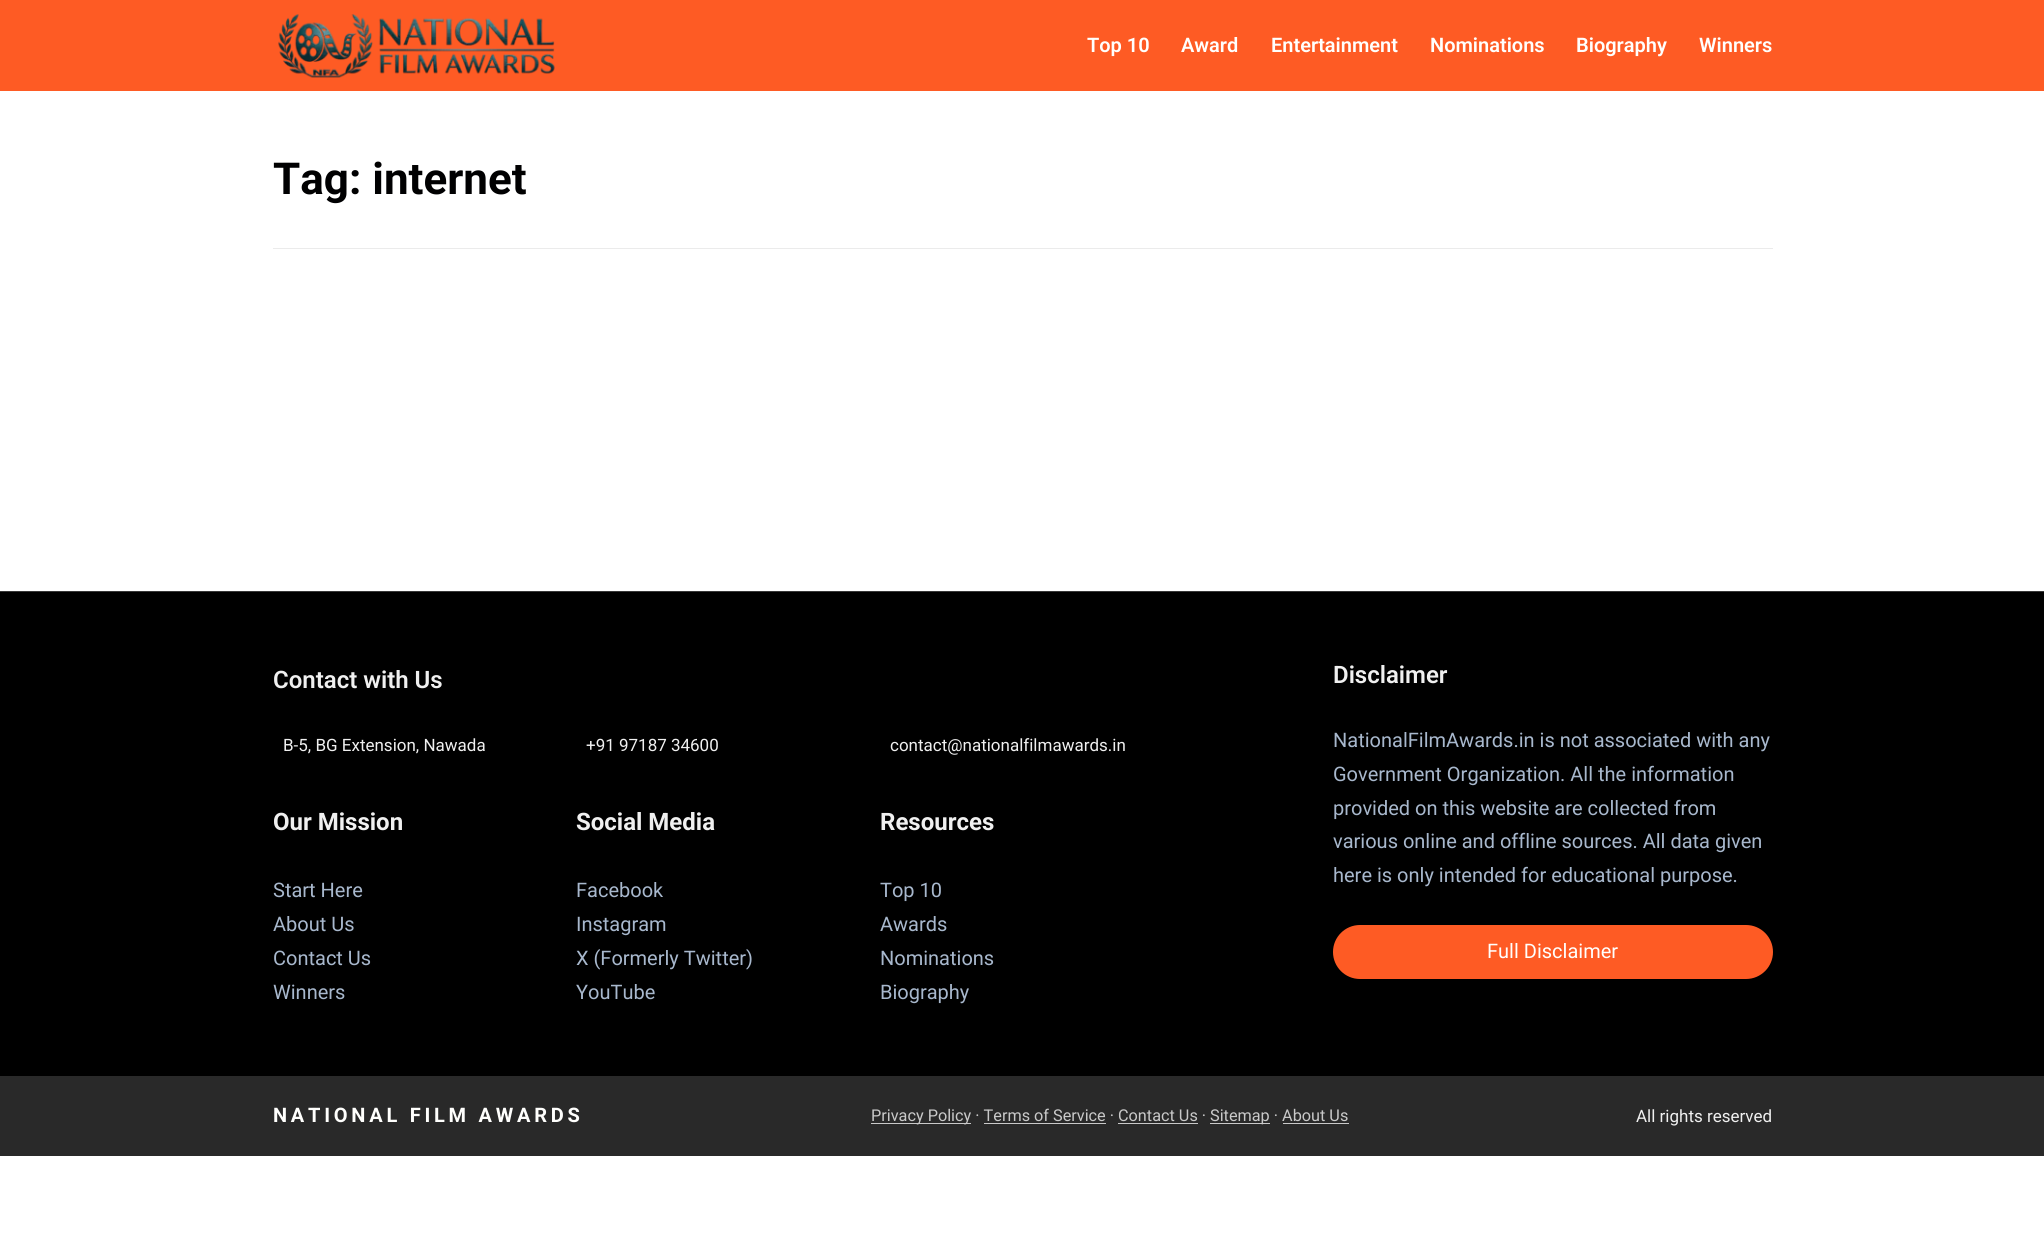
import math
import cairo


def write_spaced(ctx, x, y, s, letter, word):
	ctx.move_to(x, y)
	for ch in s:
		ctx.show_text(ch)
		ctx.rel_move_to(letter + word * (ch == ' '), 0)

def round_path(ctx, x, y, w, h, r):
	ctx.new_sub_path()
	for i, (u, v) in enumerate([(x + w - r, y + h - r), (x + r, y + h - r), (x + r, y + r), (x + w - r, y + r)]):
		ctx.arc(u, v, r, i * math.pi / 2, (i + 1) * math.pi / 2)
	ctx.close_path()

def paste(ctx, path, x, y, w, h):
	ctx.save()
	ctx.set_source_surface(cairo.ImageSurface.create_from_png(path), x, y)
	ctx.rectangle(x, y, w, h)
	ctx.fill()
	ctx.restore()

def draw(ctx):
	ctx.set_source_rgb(1, 1, 1)
	ctx.paint()
	ctx.set_source_rgb(0.996, 0.357, 0.141)
	ctx.rectangle(0, 0, 2044, 91)
	ctx.fill()
	paste(ctx, 'media/1.png', 278, 14, 277, 64)
	ctx.select_font_face('Roboto SemiBold')
	ctx.set_font_size(20)
	ctx.set_source_rgb(1, 1, 0.992)
	for x, y, s in [
		(1087, 52, 'Top 10'),
		(1181, 52, 'Award'),
		(1271, 52, 'Entertainment'),
		(1430, 52, 'Nominations'),
		(1576, 52, 'Biography'),
		(1699, 52, 'Winners'),
	]:
		ctx.move_to(x, y)
		ctx.show_text(s)
	ctx.select_font_face('Roboto', cairo.FONT_SLANT_NORMAL, cairo.FONT_WEIGHT_BOLD)
	ctx.set_font_size(44)
	ctx.set_source_rgb(0, 0, 0.004)
	ctx.move_to(273, 194)
	ctx.show_text('Tag: internet')
	ctx.set_source_rgb(0.918, 0.918, 0.918)
	ctx.rectangle(273, 248, 1500, 1)
	ctx.fill()
	ctx.set_source_rgb(0, 0, 0)
	ctx.rectangle(0, 592, 2044, 484)
	ctx.fill()
	ctx.set_source_rgb(0.22, 0.22, 0.22)
	ctx.rectangle(0, 591, 2044, 1)
	ctx.fill()
	ctx.select_font_face('Roboto SemiBold')
	ctx.set_font_size(24)
	ctx.set_source_rgb(0.941, 0.941, 0.941)
	ctx.move_to(273, 688)
	ctx.show_text('Contact with Us')
	ctx.select_font_face('Roboto')
	ctx.set_font_size(17)
	for x, y, s in [
		(283, 751, 'B-5, BG Extension, Nawada'),
		(586, 751, '+91 97187 34600'),
		(890, 751, 'contact@nationalfilmawards.in'),
	]:
		ctx.move_to(x, y)
		ctx.show_text(s)
	ctx.select_font_face('Roboto', cairo.FONT_SLANT_NORMAL, cairo.FONT_WEIGHT_BOLD)
	ctx.set_font_size(24)
	ctx.move_to(273, 830)
	ctx.show_text('Our Mission')
	ctx.select_font_face('Roboto')
	ctx.set_font_size(20)
	ctx.set_source_rgb(0.659, 0.722, 0.804)
	for x, y, s in [
		(273, 897, 'Start Here'),
		(273, 931, 'About Us'),
		(273, 965, 'Contact Us'),
		(273, 999, 'Winners'),
	]:
		ctx.move_to(x, y)
		ctx.show_text(s)
	ctx.select_font_face('Roboto', cairo.FONT_SLANT_NORMAL, cairo.FONT_WEIGHT_BOLD)
	ctx.set_font_size(24)
	ctx.set_source_rgb(0.941, 0.941, 0.941)
	ctx.move_to(576, 830)
	ctx.show_text('Social Media')
	ctx.select_font_face('Roboto')
	ctx.set_font_size(20)
	ctx.set_source_rgb(0.659, 0.722, 0.804)
	for x, y, s in [
		(576, 897, 'Facebook'),
		(576, 931, 'Instagram'),
		(576, 965, 'X (Formerly Twitter)'),
		(576, 999, 'YouTube'),
	]:
		ctx.move_to(x, y)
		ctx.show_text(s)
	ctx.select_font_face('Roboto', cairo.FONT_SLANT_NORMAL, cairo.FONT_WEIGHT_BOLD)
	ctx.set_font_size(24)
	ctx.set_source_rgb(0.941, 0.941, 0.941)
	ctx.move_to(880, 830)
	ctx.show_text('Resources')
	ctx.select_font_face('Roboto')
	ctx.set_font_size(20)
	ctx.set_source_rgb(0.659, 0.722, 0.804)
	for x, y, s in [
		(880, 897, 'Top 10'),
		(880, 931, 'Awards'),
		(880, 965, 'Nominations'),
		(880, 999, 'Biography'),
	]:
		ctx.move_to(x, y)
		ctx.show_text(s)
	ctx.select_font_face('Roboto SemiBold')
	ctx.set_font_size(24)
	ctx.set_source_rgb(0.941, 0.941, 0.941)
	ctx.move_to(1333, 683)
	ctx.show_text('Disclaimer')
	ctx.select_font_face('Roboto')
	ctx.set_font_size(20)
	ctx.set_source_rgb(0.659, 0.722, 0.804)
	for x, y, s in [
		(1333, 747, 'NationalFilmAwards.in is not associated with any'),
		(1333, 781, 'Government Organization. All the information'),
		(1333, 815, 'provided on this website are collected from'),
		(1333, 848, 'various online and offline sources. All data given'),
		(1333, 882, 'here is only intended for educational purpose.'),
	]:
		ctx.move_to(x, y)
		ctx.show_text(s)
	ctx.set_source_rgb(0.996, 0.357, 0.141)
	round_path(ctx, 1333, 925, 440, 54, 27)
	ctx.fill()
	ctx.set_source_rgb(1, 1, 0.992)
	ctx.move_to(1487, 958)
	ctx.show_text('Full Disclaimer')
	ctx.set_source_rgb(0.161, 0.161, 0.161)
	ctx.rectangle(0, 1076, 2044, 80)
	ctx.fill()
	ctx.select_font_face('Roboto', cairo.FONT_SLANT_NORMAL, cairo.FONT_WEIGHT_BOLD)
	ctx.set_source_rgb(1, 1, 0.992)
	write_spaced(ctx, 273, 1122, 'NATIONAL FILM AWARDS', 3.75, 0)
	ctx.set_source_rgb(0.788, 0.788, 0.788)
	ctx.rectangle(871, 1123, 100, 1)
	ctx.fill()
	ctx.select_font_face('Roboto')
	ctx.set_font_size(16.25)
	ctx.move_to(871, 1121)
	ctx.show_text('Privacy Policy · Terms of Service · Contact Us ·')
	ctx.rectangle(1210, 1123, 60, 1)
	ctx.fill()
	ctx.move_to(1210, 1121)
	ctx.show_text('Sitemap · About Us')
	ctx.rectangle(984, 1123, 122, 1)
	ctx.rectangle(1118, 1123, 80, 1)
	ctx.rectangle(1283, 1123, 66, 1)
	ctx.fill()
	ctx.set_font_size(17)
	ctx.set_source_rgb(0.941, 0.941, 0.941)
	ctx.move_to(1636, 1122)
	ctx.show_text('All rights reserved')


surface = cairo.ImageSurface(cairo.FORMAT_RGB24, 2044, 1238)
ctx = cairo.Context(surface)
options = cairo.FontOptions()
options.set_hint_metrics(cairo.HINT_METRICS_OFF)
options.set_hint_style(cairo.HINT_STYLE_NONE)
ctx.set_font_options(options)
ctx.set_miter_limit(4)
draw(ctx)
surface.write_to_png('image.png')
